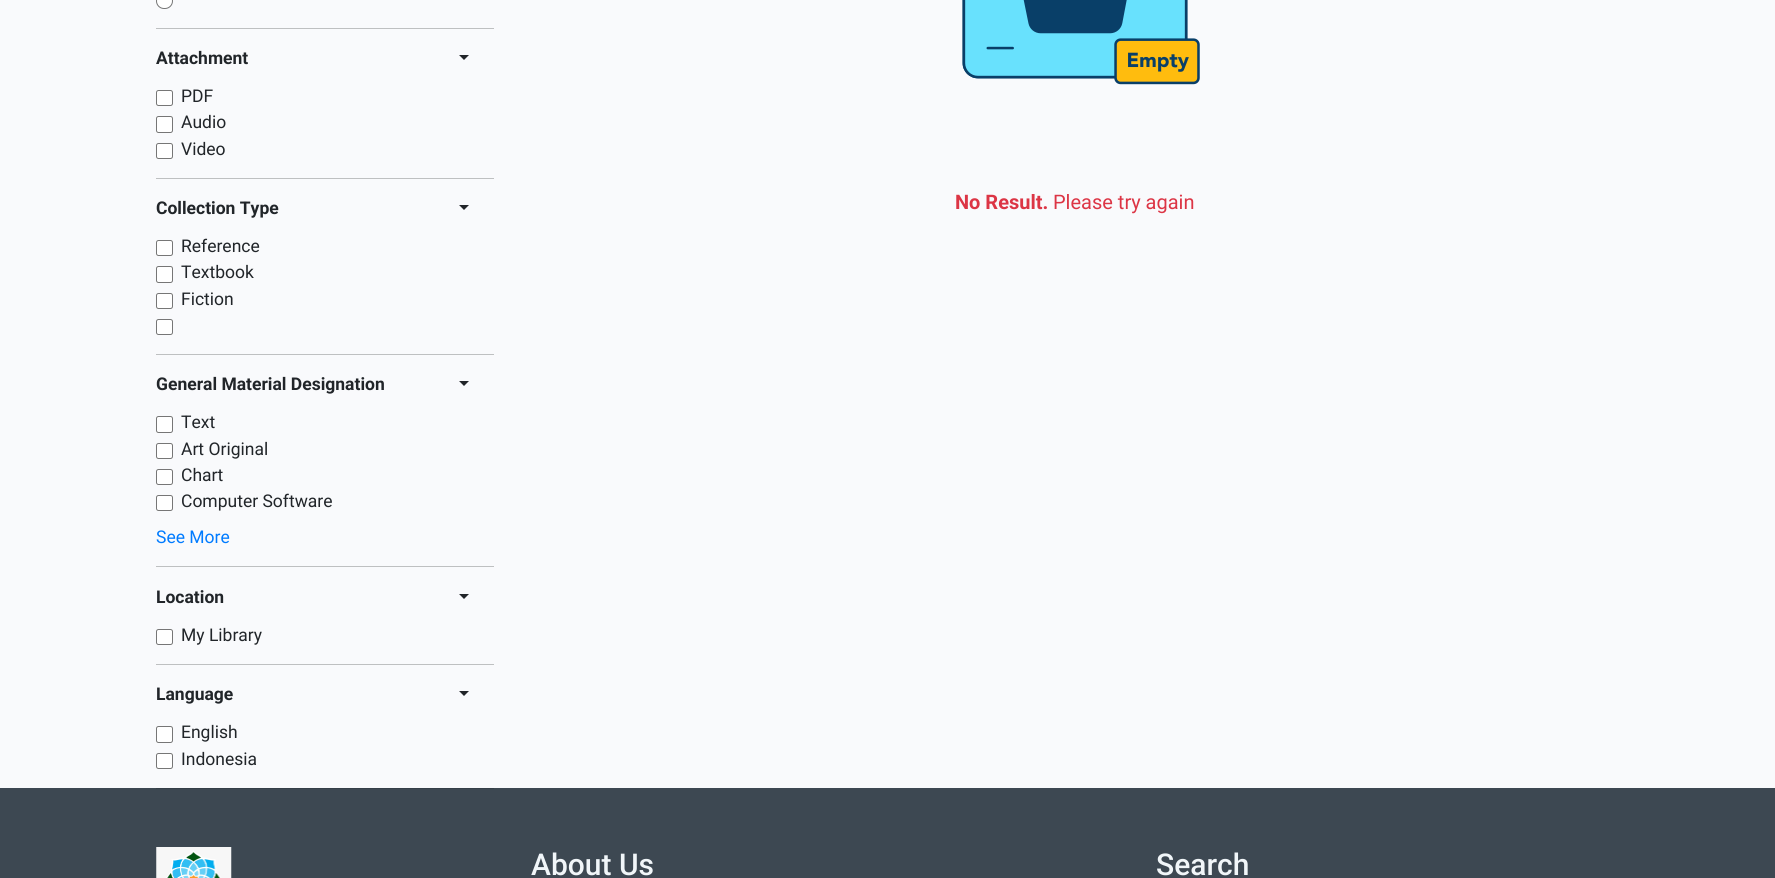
import math
import cairo


def round_path(ctx, x, y, w, h, r):
	ctx.new_sub_path()
	for i, (u, v) in enumerate([(x + w - r, y + h - r), (x + r, y + h - r), (x + r, y + r), (x + w - r, y + r)]):
		ctx.arc(u, v, r, i * math.pi / 2, (i + 1) * math.pi / 2)
	ctx.close_path()

def paste(ctx, path, x, y, w, h):
	ctx.save()
	ctx.set_source_surface(cairo.ImageSurface.create_from_png(path), x, y)
	ctx.rectangle(x, y, w, h)
	ctx.fill()
	ctx.restore()

def draw(ctx):
	ctx.set_source_rgb(0.973, 0.98, 0.988)
	ctx.paint()
	ctx.set_source_rgb(1, 1, 1)
	round_path(ctx, 156.5, -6.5, 16, 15, 7.5)
	ctx.fill_preserve()
	ctx.set_source_rgb(0.463, 0.463, 0.463)
	ctx.set_line_width(1)
	ctx.stroke()
	ctx.set_source_rgb(0.745, 0.753, 0.757)
	ctx.rectangle(156, 28, 338, 1)
	ctx.fill()
	ctx.select_font_face('Roboto', cairo.FONT_SLANT_NORMAL, cairo.FONT_WEIGHT_BOLD)
	ctx.set_font_size(17.5)
	ctx.set_source_rgb(0.129, 0.145, 0.161)
	ctx.move_to(156, 64)
	ctx.show_text('Attachment')
	ctx.new_path()
	ctx.move_to(459, 55)
	ctx.line_to(469, 55)
	ctx.line_to(464, 60)
	ctx.close_path()
	ctx.fill()
	ctx.set_source_rgb(1, 1, 1)
	round_path(ctx, 156.5, 90.5, 16, 15, 2)
	ctx.fill_preserve()
	ctx.set_source_rgb(0.463, 0.463, 0.463)
	ctx.stroke()
	ctx.select_font_face('Roboto')
	ctx.set_source_rgb(0.129, 0.145, 0.161)
	ctx.move_to(181, 102)
	ctx.show_text('PDF')
	ctx.set_source_rgb(1, 1, 1)
	round_path(ctx, 156.5, 116.5, 16, 16, 2)
	ctx.fill_preserve()
	ctx.set_source_rgb(0.463, 0.463, 0.463)
	ctx.stroke()
	ctx.set_source_rgb(0.129, 0.145, 0.161)
	ctx.move_to(181, 128)
	ctx.show_text('Audio')
	ctx.set_source_rgb(1, 1, 1)
	round_path(ctx, 156.5, 143.5, 16, 15, 2)
	ctx.fill_preserve()
	ctx.set_source_rgb(0.463, 0.463, 0.463)
	ctx.stroke()
	ctx.set_source_rgb(0.129, 0.145, 0.161)
	ctx.move_to(181, 155)
	ctx.show_text('Video')
	ctx.set_source_rgb(0.745, 0.753, 0.757)
	ctx.rectangle(156, 178, 338, 1)
	ctx.fill()
	ctx.select_font_face('Roboto', cairo.FONT_SLANT_NORMAL, cairo.FONT_WEIGHT_BOLD)
	ctx.set_source_rgb(0.129, 0.145, 0.161)
	ctx.move_to(156, 214)
	ctx.show_text('Collection Type')
	ctx.new_path()
	ctx.move_to(459, 205)
	ctx.line_to(469, 205)
	ctx.line_to(464, 210)
	ctx.close_path()
	ctx.fill()
	ctx.set_source_rgb(1, 1, 1)
	round_path(ctx, 156.5, 240.5, 16, 15, 2)
	ctx.fill_preserve()
	ctx.set_source_rgb(0.463, 0.463, 0.463)
	ctx.stroke()
	ctx.select_font_face('Roboto')
	ctx.set_source_rgb(0.129, 0.145, 0.161)
	ctx.move_to(181, 252)
	ctx.show_text('Reference')
	ctx.set_source_rgb(1, 1, 1)
	round_path(ctx, 156.5, 266.5, 16, 16, 2)
	ctx.fill_preserve()
	ctx.set_source_rgb(0.463, 0.463, 0.463)
	ctx.stroke()
	ctx.set_source_rgb(0.129, 0.145, 0.161)
	ctx.move_to(181, 278)
	ctx.show_text('Textbook')
	ctx.set_source_rgb(1, 1, 1)
	round_path(ctx, 156.5, 293.5, 16, 15, 2)
	ctx.fill_preserve()
	ctx.set_source_rgb(0.463, 0.463, 0.463)
	ctx.stroke()
	ctx.set_source_rgb(0.129, 0.145, 0.161)
	ctx.move_to(181, 305)
	ctx.show_text('Fiction')
	ctx.set_source_rgb(1, 1, 1)
	round_path(ctx, 156.5, 319.5, 16, 15, 2)
	ctx.fill_preserve()
	ctx.set_source_rgb(0.463, 0.463, 0.463)
	ctx.stroke()
	ctx.set_source_rgb(0.745, 0.753, 0.757)
	ctx.rectangle(156, 354, 338, 1)
	ctx.fill()
	ctx.select_font_face('Roboto', cairo.FONT_SLANT_NORMAL, cairo.FONT_WEIGHT_BOLD)
	ctx.set_source_rgb(0.129, 0.145, 0.161)
	ctx.move_to(156, 390)
	ctx.show_text('General Material Designation')
	ctx.new_path()
	ctx.move_to(459, 381)
	ctx.line_to(469, 381)
	ctx.line_to(464, 386)
	ctx.close_path()
	ctx.fill()
	ctx.set_source_rgb(1, 1, 1)
	round_path(ctx, 156.5, 416.5, 16, 16, 2)
	ctx.fill_preserve()
	ctx.set_source_rgb(0.463, 0.463, 0.463)
	ctx.stroke()
	ctx.select_font_face('Roboto')
	ctx.set_source_rgb(0.129, 0.145, 0.161)
	ctx.move_to(181, 428)
	ctx.show_text('Text')
	ctx.set_source_rgb(1, 1, 1)
	round_path(ctx, 156.5, 443.5, 16, 15, 2)
	ctx.fill_preserve()
	ctx.set_source_rgb(0.463, 0.463, 0.463)
	ctx.stroke()
	ctx.set_source_rgb(0.129, 0.145, 0.161)
	ctx.move_to(181, 455)
	ctx.show_text('Art Original')
	ctx.set_source_rgb(1, 1, 1)
	round_path(ctx, 156.5, 469.5, 16, 15, 2)
	ctx.fill_preserve()
	ctx.set_source_rgb(0.463, 0.463, 0.463)
	ctx.stroke()
	ctx.set_source_rgb(0.129, 0.145, 0.161)
	ctx.move_to(181, 481)
	ctx.show_text('Chart')
	ctx.set_source_rgb(1, 1, 1)
	round_path(ctx, 156.5, 495.5, 16, 15, 2)
	ctx.fill_preserve()
	ctx.set_source_rgb(0.463, 0.463, 0.463)
	ctx.stroke()
	ctx.set_source_rgb(0.129, 0.145, 0.161)
	ctx.move_to(181, 507)
	ctx.show_text('Computer Software')
	ctx.set_source_rgb(0, 0.482, 1)
	ctx.move_to(156, 543)
	ctx.show_text('See More')
	ctx.set_source_rgb(0.745, 0.753, 0.757)
	ctx.rectangle(156, 566, 338, 1)
	ctx.fill()
	ctx.select_font_face('Roboto', cairo.FONT_SLANT_NORMAL, cairo.FONT_WEIGHT_BOLD)
	ctx.set_source_rgb(0.129, 0.145, 0.161)
	ctx.move_to(156, 603)
	ctx.show_text('Location')
	ctx.new_path()
	ctx.move_to(459, 594)
	ctx.line_to(469, 594)
	ctx.line_to(464, 599)
	ctx.close_path()
	ctx.fill()
	ctx.set_source_rgb(1, 1, 1)
	round_path(ctx, 156.5, 629.5, 16, 15, 2)
	ctx.fill_preserve()
	ctx.set_source_rgb(0.463, 0.463, 0.463)
	ctx.stroke()
	ctx.select_font_face('Roboto')
	ctx.set_source_rgb(0.129, 0.145, 0.161)
	ctx.move_to(181, 641)
	ctx.show_text('My Library')
	ctx.set_source_rgb(0.745, 0.753, 0.757)
	ctx.rectangle(156, 664, 338, 1)
	ctx.fill()
	ctx.set_source_rgb(0.239, 0.282, 0.322)
	ctx.rectangle(0, 788, 1775, 90)
	ctx.fill()
	ctx.set_source_rgb(0.208, 0.247, 0.282)
	ctx.rectangle(156, 788, 338, 1)
	ctx.fill()
	ctx.select_font_face('Roboto', cairo.FONT_SLANT_NORMAL, cairo.FONT_WEIGHT_BOLD)
	ctx.set_source_rgb(0.129, 0.145, 0.161)
	ctx.move_to(156, 700)
	ctx.show_text('Language')
	ctx.new_path()
	ctx.move_to(459, 691)
	ctx.line_to(469, 691)
	ctx.line_to(464, 696)
	ctx.close_path()
	ctx.fill()
	ctx.set_source_rgb(1, 1, 1)
	round_path(ctx, 156.5, 726.5, 16, 16, 2)
	ctx.fill_preserve()
	ctx.set_source_rgb(0.463, 0.463, 0.463)
	ctx.stroke()
	ctx.select_font_face('Roboto')
	ctx.set_source_rgb(0.129, 0.145, 0.161)
	ctx.move_to(181, 738)
	ctx.show_text('English')
	ctx.set_source_rgb(1, 1, 1)
	round_path(ctx, 156.5, 753.5, 16, 15, 2)
	ctx.fill_preserve()
	ctx.set_source_rgb(0.463, 0.463, 0.463)
	ctx.stroke()
	ctx.set_source_rgb(0.129, 0.145, 0.161)
	ctx.move_to(181, 765)
	ctx.show_text('Indonesia')
	paste(ctx, 'media/1.png', 962, 0, 238, 85)
	ctx.select_font_face('Roboto', cairo.FONT_SLANT_NORMAL, cairo.FONT_WEIGHT_BOLD)
	ctx.set_font_size(20)
	ctx.set_source_rgb(0.863, 0.208, 0.271)
	ctx.move_to(955, 209)
	ctx.show_text('No Result.')
	ctx.select_font_face('Roboto')
	ctx.move_to(1053, 209)
	ctx.show_text('Please try again')
	paste(ctx, 'media/2.png', 156, 847, 76, 31)
	ctx.select_font_face('Roboto Medium')
	ctx.set_font_size(30)
	ctx.set_source_rgb(0.945, 0.961, 0.973)
	ctx.move_to(531, 875)
	ctx.show_text('About Us')
	ctx.move_to(1156, 875)
	ctx.show_text('Search')


surface = cairo.ImageSurface(cairo.FORMAT_RGB24, 1775, 878)
ctx = cairo.Context(surface)
options = cairo.FontOptions()
options.set_hint_metrics(cairo.HINT_METRICS_OFF)
options.set_hint_style(cairo.HINT_STYLE_NONE)
ctx.set_font_options(options)
ctx.set_miter_limit(4)
draw(ctx)
surface.write_to_png('image.png')
